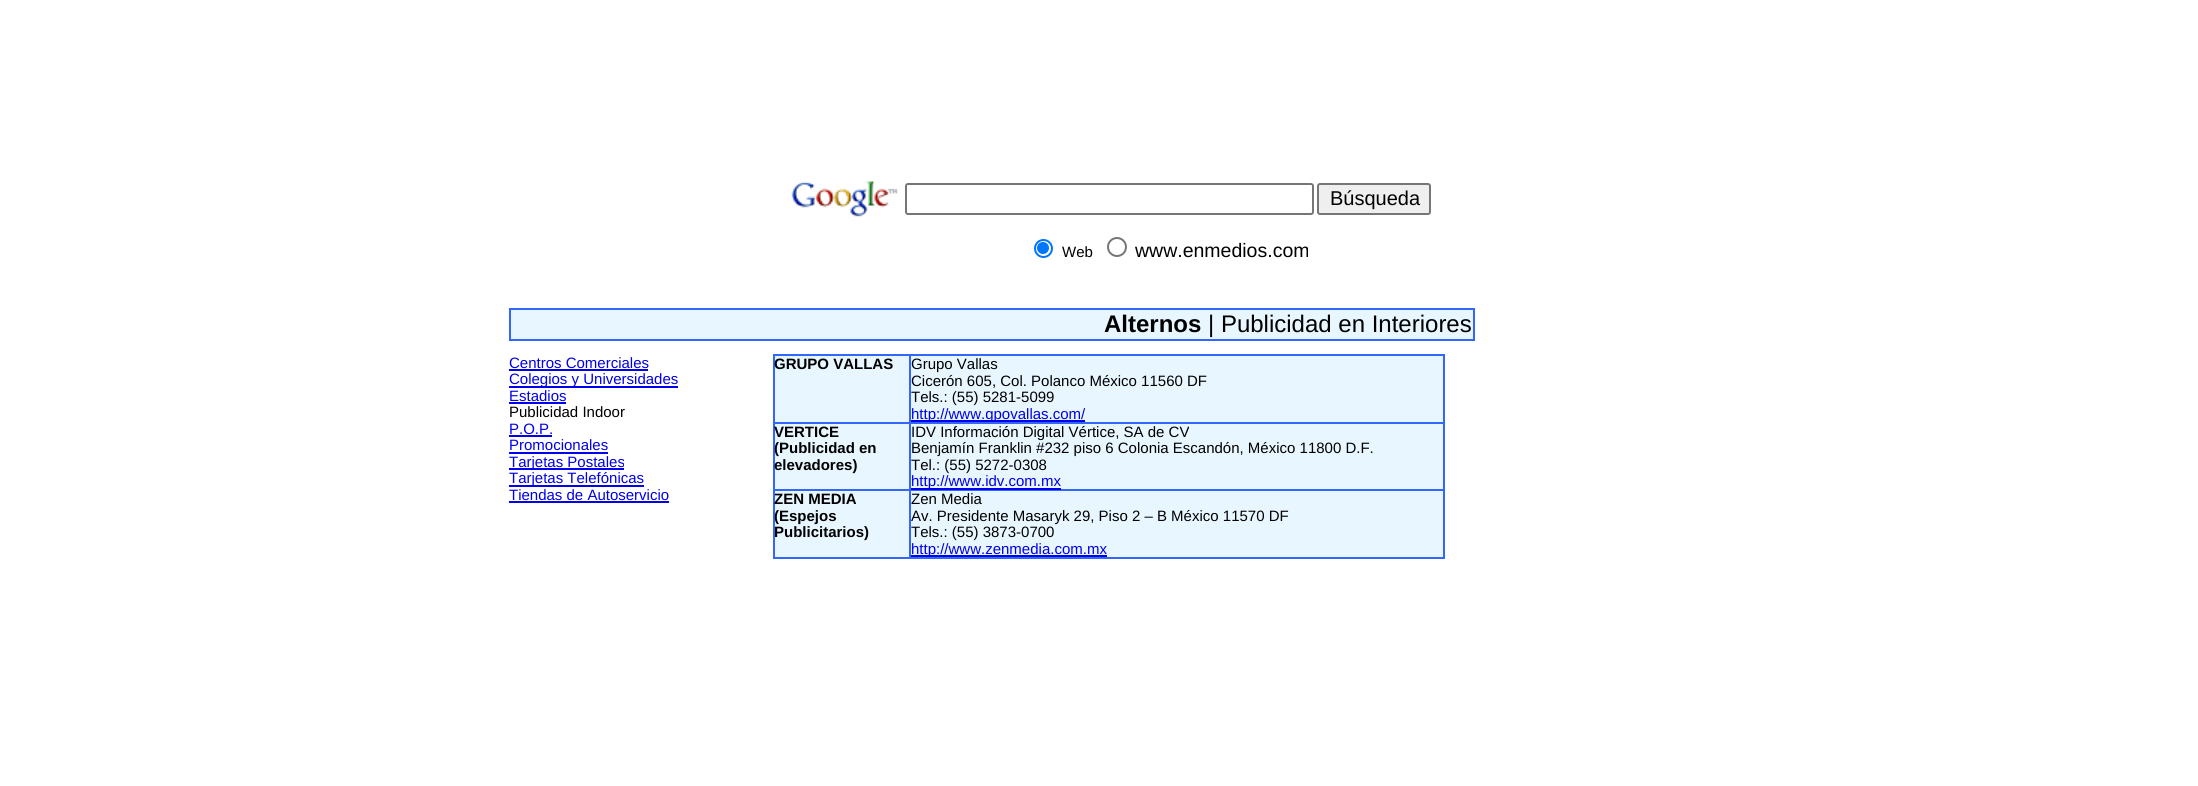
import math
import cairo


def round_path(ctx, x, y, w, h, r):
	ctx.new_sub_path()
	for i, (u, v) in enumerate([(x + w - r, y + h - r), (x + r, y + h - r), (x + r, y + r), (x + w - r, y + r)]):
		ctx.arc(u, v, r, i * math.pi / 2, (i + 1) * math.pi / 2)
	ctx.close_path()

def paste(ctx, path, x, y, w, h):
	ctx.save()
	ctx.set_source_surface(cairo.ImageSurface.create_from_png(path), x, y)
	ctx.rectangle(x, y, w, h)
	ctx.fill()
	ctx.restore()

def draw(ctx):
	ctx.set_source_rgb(1, 1, 1)
	ctx.paint()
	paste(ctx, 'media/1.png', 791, 181, 107, 36)
	round_path(ctx, 906, 184, 407, 30, 2)
	ctx.set_source_rgb(0.463, 0.463, 0.463)
	ctx.stroke()
	ctx.set_source_rgb(0.937, 0.937, 0.937)
	round_path(ctx, 1318, 184, 112, 30, 2)
	ctx.fill_preserve()
	ctx.set_source_rgb(0.463, 0.463, 0.463)
	ctx.stroke()
	ctx.select_font_face('Liberation Sans')
	ctx.set_font_size(20)
	ctx.set_source_rgb(0, 0, 0)
	ctx.move_to(1330, 205)
	ctx.show_text('Búsqueda')
	ctx.new_path()
	ctx.arc(1043.5, 248.5, 8.5, 0, 2 * math.pi)
	ctx.set_source_rgb(0, 0.459, 1)
	ctx.stroke()
	ctx.arc(1043, 248, 6, 0, 2 * math.pi)
	ctx.fill()
	ctx.set_font_size(15)
	ctx.set_source_rgb(0, 0, 0)
	ctx.move_to(1062, 257)
	ctx.show_text('Web')
	ctx.new_path()
	ctx.arc(1117, 247, 9, 0, 2 * math.pi)
	ctx.set_source_rgb(0.463, 0.463, 0.463)
	ctx.stroke()
	ctx.set_font_size(19.5)
	ctx.set_source_rgb(0, 0, 0)
	ctx.move_to(1135, 257)
	ctx.show_text('www.enmedios.com')
	ctx.set_source_rgb(0.2, 0.4, 1)
	ctx.rectangle(509, 308, 966, 2)
	ctx.rectangle(1473, 308, 2, 33)
	ctx.rectangle(509, 339, 966, 2)
	ctx.rectangle(509, 308, 2, 33)
	ctx.fill()
	ctx.set_source_rgb(0.91, 0.961, 1)
	ctx.rectangle(511, 310, 962, 29)
	ctx.fill()
	ctx.select_font_face('Liberation Sans', cairo.FONT_SLANT_NORMAL, cairo.FONT_WEIGHT_BOLD)
	ctx.set_font_size(24)
	ctx.set_source_rgb(0, 0, 0)
	ctx.move_to(1104, 332)
	ctx.show_text('Alternos')
	ctx.select_font_face('Liberation Sans')
	ctx.move_to(1208, 332)
	ctx.show_text('| Publicidad en Interiores')
	ctx.set_font_size(15)
	ctx.set_source_rgb(0, 0, 0.933)
	ctx.move_to(509, 368)
	ctx.show_text('Centros Comerciales')
	ctx.rectangle(509, 369, 139, 2)
	ctx.fill()
	ctx.rectangle(509, 386, 169, 2)
	ctx.fill()
	ctx.move_to(509, 384)
	ctx.show_text('Colegios y Universidades')
	ctx.move_to(509, 401)
	ctx.show_text('Estadios')
	ctx.rectangle(509, 402, 57, 2)
	ctx.fill()
	ctx.set_source_rgb(0, 0, 0)
	ctx.move_to(509, 417)
	ctx.show_text('Publicidad Indoor')
	ctx.set_source_rgb(0, 0, 0.933)
	ctx.move_to(509, 434)
	ctx.show_text('P.O.P.')
	ctx.rectangle(509, 435, 43, 2)
	ctx.fill()
	ctx.move_to(509, 450)
	ctx.show_text('Promocionales')
	ctx.rectangle(509, 452, 99, 2)
	ctx.fill()
	ctx.rectangle(509, 468, 115, 2)
	ctx.fill()
	ctx.move_to(509, 467)
	ctx.show_text('Tarjetas Postales')
	ctx.rectangle(509, 485, 135, 2)
	ctx.fill()
	ctx.move_to(509, 483)
	ctx.show_text('Tarjetas Telefónicas')
	ctx.move_to(509, 500)
	ctx.show_text('Tiendas de Autoservicio')
	ctx.rectangle(509, 501, 160, 2)
	ctx.fill()
	ctx.set_source_rgb(0.91, 0.961, 1)
	ctx.rectangle(775, 356, 668, 201)
	ctx.fill()
	ctx.set_source_rgb(0.2, 0.4, 1)
	ctx.rectangle(773, 354, 672, 2)
	ctx.rectangle(1443, 354, 2, 204)
	ctx.rectangle(773, 557, 672, 2)
	ctx.rectangle(773, 354, 2, 204)
	ctx.fill()
	ctx.select_font_face('Liberation Sans', cairo.FONT_SLANT_NORMAL, cairo.FONT_WEIGHT_BOLD)
	ctx.set_source_rgb(0, 0, 0)
	ctx.move_to(774, 369)
	ctx.show_text('GRUPO VALLAS')
	ctx.set_source_rgb(0.2, 0.4, 1)
	ctx.rectangle(909, 422, 536, 2)
	ctx.rectangle(909, 489, 536, 2)
	ctx.rectangle(909, 489, 2, 69)
	ctx.rectangle(773, 489, 138, 2)
	ctx.rectangle(909, 422, 2, 69)
	ctx.rectangle(773, 422, 138, 2)
	ctx.rectangle(909, 354, 2, 69)
	ctx.fill()
	ctx.select_font_face('Liberation Sans')
	ctx.set_source_rgb(0, 0, 0)
	for x, y, s in [
		(911, 369, 'Grupo Vallas'),
		(911, 386, 'Cicerón 605, Col. Polanco México 11560 DF'),
		(911, 402, 'Tels.: (55) 5281-5099'),
	]:
		ctx.move_to(x, y)
		ctx.show_text(s)
	ctx.set_source_rgb(0, 0, 0.933)
	ctx.rectangle(911, 420, 174, 2)
	ctx.fill()
	ctx.move_to(911, 419)
	ctx.show_text('http://www.gpovallas.com/')
	ctx.select_font_face('Liberation Sans', cairo.FONT_SLANT_NORMAL, cairo.FONT_WEIGHT_BOLD)
	ctx.set_source_rgb(0, 0, 0)
	for x, y, s in [
		(774, 437, 'VERTICE'),
		(774, 453, '(Publicidad en'),
		(774, 470, 'elevadores)'),
	]:
		ctx.move_to(x, y)
		ctx.show_text(s)
	ctx.select_font_face('Liberation Sans')
	for x, y, s in [
		(911, 437, 'IDV Información Digital Vértice, SA de CV'),
		(911, 453, 'Benjamín Franklin #232 piso 6 Colonia Escandón, México 11800 D.F.'),
		(911, 470, 'Tel.: (55) 5272-0308'),
	]:
		ctx.move_to(x, y)
		ctx.show_text(s)
	ctx.set_source_rgb(0, 0, 0.933)
	ctx.rectangle(911, 488, 150, 2)
	ctx.fill()
	ctx.move_to(911, 486)
	ctx.show_text('http://www.idv.com.mx')
	ctx.select_font_face('Liberation Sans', cairo.FONT_SLANT_NORMAL, cairo.FONT_WEIGHT_BOLD)
	ctx.set_source_rgb(0, 0, 0)
	for x, y, s in [
		(774, 504, 'ZEN MEDIA'),
		(774, 521, '(Espejos'),
		(774, 537, 'Publicitarios)'),
	]:
		ctx.move_to(x, y)
		ctx.show_text(s)
	ctx.select_font_face('Liberation Sans')
	for x, y, s in [
		(911, 504, 'Zen Media'),
		(911, 521, 'Av. Presidente Masaryk 29, Piso 2 – B México 11570 DF'),
		(911, 537, 'Tels.: (55) 3873-0700'),
	]:
		ctx.move_to(x, y)
		ctx.show_text(s)
	ctx.set_source_rgb(0, 0, 0.933)
	ctx.rectangle(911, 555, 196, 2)
	ctx.fill()
	ctx.move_to(911, 554)
	ctx.show_text('http://www.zenmedia.com.mx')


surface = cairo.ImageSurface(cairo.FORMAT_RGB24, 2198, 786)
ctx = cairo.Context(surface)
options = cairo.FontOptions()
options.set_hint_metrics(cairo.HINT_METRICS_OFF)
options.set_hint_style(cairo.HINT_STYLE_NONE)
ctx.set_font_options(options)
ctx.set_miter_limit(4)
draw(ctx)
surface.write_to_png('image.png')
